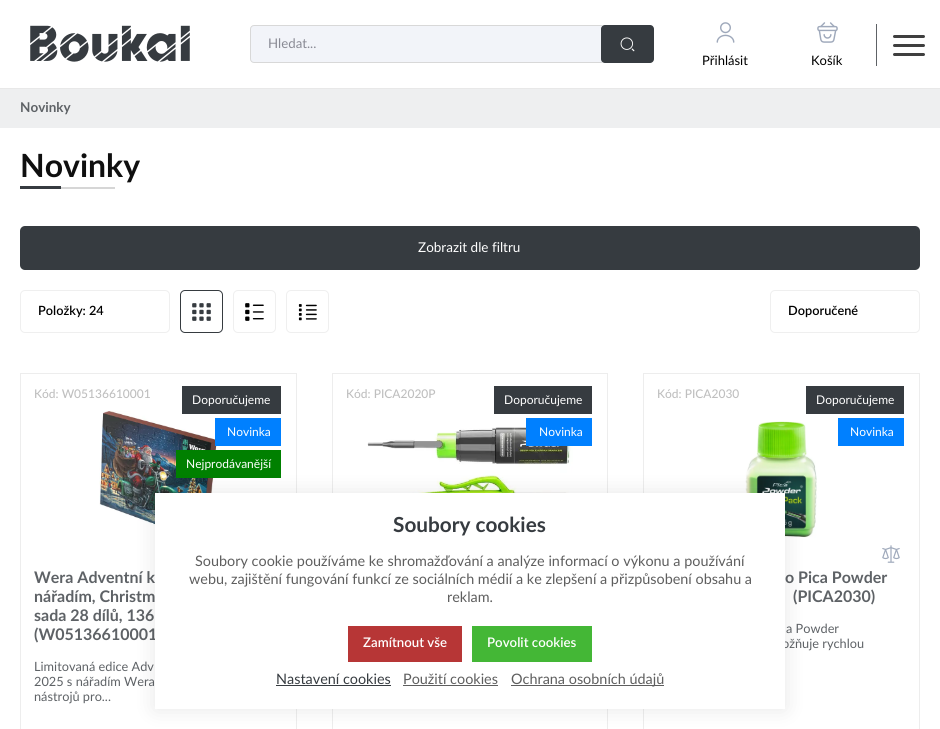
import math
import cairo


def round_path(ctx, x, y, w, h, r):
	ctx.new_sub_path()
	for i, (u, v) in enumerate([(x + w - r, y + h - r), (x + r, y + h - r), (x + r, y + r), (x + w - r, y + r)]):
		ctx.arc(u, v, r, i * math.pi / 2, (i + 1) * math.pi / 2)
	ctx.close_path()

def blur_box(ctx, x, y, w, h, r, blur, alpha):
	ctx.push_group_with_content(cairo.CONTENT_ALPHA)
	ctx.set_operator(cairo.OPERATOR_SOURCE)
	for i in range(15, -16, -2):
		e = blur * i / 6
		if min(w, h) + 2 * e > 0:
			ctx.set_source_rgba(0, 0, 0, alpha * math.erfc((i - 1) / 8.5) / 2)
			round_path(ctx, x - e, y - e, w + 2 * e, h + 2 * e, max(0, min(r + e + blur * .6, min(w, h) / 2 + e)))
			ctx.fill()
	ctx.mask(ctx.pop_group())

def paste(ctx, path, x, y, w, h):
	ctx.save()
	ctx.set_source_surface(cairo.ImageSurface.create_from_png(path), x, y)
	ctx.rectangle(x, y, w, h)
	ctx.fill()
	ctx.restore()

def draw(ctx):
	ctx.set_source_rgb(1, 1, 1)
	ctx.paint()
	ctx.set_source_rgb(0.91, 0.91, 0.91)
	ctx.rectangle(0, 88, 940, 1)
	ctx.fill()
	paste(ctx, 'media/1.png', 30, 25, 160, 37)
	ctx.set_source_rgb(0.949, 0.957, 0.973)
	round_path(ctx, 250.5, 25.5, 354, 37, 3.5)
	ctx.fill_preserve()
	ctx.set_source_rgb(0.847, 0.847, 0.847)
	ctx.set_line_width(1)
	ctx.stroke()
	ctx.select_font_face('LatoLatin')
	ctx.set_font_size(13.25)
	ctx.set_source_rgb(0.537, 0.541, 0.58)
	ctx.move_to(268, 48)
	ctx.show_text('Hledat...')
	ctx.set_source_rgb(0.212, 0.231, 0.251)
	round_path(ctx, 601, 25, 53, 38, 4)
	ctx.fill()
	paste(ctx, 'media/2.png', 620, 37, 15, 15)
	paste(ctx, 'media/3.png', 716, 22, 19, 21)
	ctx.set_font_size(13)
	ctx.set_source_rgb(0, 0, 0)
	ctx.move_to(702, 65)
	ctx.show_text('Přihlásit')
	paste(ctx, 'media/4.png', 817, 22, 21, 21)
	ctx.move_to(811, 65)
	ctx.show_text('Košík')
	ctx.set_source_rgb(0.369, 0.384, 0.4)
	ctx.rectangle(876, 24, 1, 42)
	ctx.fill()
	ctx.set_source_rgb(0.247, 0.247, 0.247)
	round_path(ctx, 893, 35, 32, 3, 1.5)
	ctx.fill()
	round_path(ctx, 893, 44, 32, 3, 1.5)
	ctx.fill()
	round_path(ctx, 893, 53, 32, 3, 1.5)
	ctx.fill()
	ctx.set_source_rgb(0.933, 0.937, 0.941)
	ctx.rectangle(0, 89, 940, 39)
	ctx.fill()
	ctx.select_font_face('LatoLatin', cairo.FONT_SLANT_NORMAL, cairo.FONT_WEIGHT_BOLD)
	ctx.set_font_size(13.5)
	ctx.set_source_rgb(0.369, 0.384, 0.4)
	ctx.move_to(20, 112)
	ctx.show_text('Novinky')
	ctx.set_font_size(32)
	ctx.set_source_rgb(0.059, 0.059, 0.059)
	ctx.move_to(20, 177)
	ctx.show_text('Novinky')
	ctx.set_source_rgb(0.212, 0.231, 0.251)
	ctx.rectangle(20, 186, 41, 3)
	ctx.fill()
	ctx.set_source_rgb(0.839, 0.839, 0.839)
	ctx.rectangle(61, 187, 54, 2)
	ctx.fill()
	ctx.set_source_rgb(0.212, 0.231, 0.251)
	round_path(ctx, 20, 226, 900, 44, 5)
	ctx.fill()
	ctx.select_font_face('LatoLatin')
	ctx.set_font_size(13.5)
	ctx.set_source_rgb(1, 1, 1)
	ctx.move_to(418, 252)
	ctx.show_text('Zobrazit dle filtru')
	round_path(ctx, 20.5, 290.5, 149, 42, 4.5)
	ctx.set_source_rgb(0.937, 0.937, 0.937)
	ctx.stroke()
	ctx.select_font_face('LatoLatin SemiBold')
	ctx.set_font_size(12.75)
	ctx.set_source_rgb(0, 0, 0)
	ctx.move_to(38, 315)
	ctx.show_text('Položky: 24')
	round_path(ctx, 180.5, 290.5, 42, 42, 4.5)
	ctx.set_source_rgb(0.212, 0.231, 0.251)
	ctx.stroke()
	paste(ctx, 'media/5.png', 192, 303, 19, 18)
	round_path(ctx, 233.5, 290.5, 42, 42, 4.5)
	ctx.set_source_rgb(0.937, 0.937, 0.937)
	ctx.stroke()
	paste(ctx, 'media/6.png', 245, 303, 19, 18)
	round_path(ctx, 286.5, 290.5, 42, 42, 4.5)
	ctx.stroke()
	paste(ctx, 'media/7.png', 298, 304, 19, 17)
	round_path(ctx, 770.5, 290.5, 149, 42, 4.5)
	ctx.stroke()
	ctx.set_source_rgb(0, 0, 0)
	ctx.move_to(788, 315)
	ctx.show_text('Doporučené')
	ctx.rectangle(20.5, 373.5, 276, 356)
	ctx.set_source_rgb(0.929, 0.929, 0.929)
	ctx.stroke()
	ctx.select_font_face('LatoLatin Medium')
	ctx.set_font_size(12)
	ctx.set_source_rgb(0.749, 0.749, 0.749)
	ctx.move_to(34, 398)
	ctx.show_text('Kód: W05136610001')
	paste(ctx, 'media/8.png', 99, 411, 119, 130)
	ctx.set_source_rgb(0.212, 0.231, 0.251)
	ctx.rectangle(182, 386, 99, 28)
	ctx.fill()
	ctx.select_font_face('LatoLatin')
	ctx.set_source_rgb(1, 1, 1)
	ctx.move_to(192, 404)
	ctx.show_text('Doporučujeme')
	ctx.set_source_rgb(0, 0.502, 1)
	ctx.rectangle(215, 418, 66, 28)
	ctx.fill()
	ctx.set_source_rgb(1, 1, 1)
	ctx.move_to(227, 436)
	ctx.show_text('Novinka')
	ctx.set_source_rgb(0, 0.502, 0)
	ctx.rectangle(176, 450, 105, 28)
	ctx.fill()
	ctx.set_source_rgb(1, 1, 1)
	ctx.move_to(186, 468)
	ctx.show_text('Nejprodávanější')
	ctx.select_font_face('LatoLatin', cairo.FONT_SLANT_NORMAL, cairo.FONT_WEIGHT_BOLD)
	ctx.set_font_size(16)
	ctx.set_source_rgb(0.369, 0.384, 0.4)
	for x, y, s in [
		(34, 583, 'Wera Adventní k'),
		(34, 602, 'nářadím, Christm'),
		(34, 621, 'sada 28 dílů, 136'),
		(34, 640, '(W05136610001'),
	]:
		ctx.move_to(x, y)
		ctx.show_text(s)
	ctx.select_font_face('LatoLatin')
	ctx.set_font_size(12.75)
	for x, y, s in [
		(34, 671, 'Limitovaná edice Adv'),
		(34, 686, '2025 s nářadím Wera'),
		(34, 701, 'nástrojů pro...'),
	]:
		ctx.move_to(x, y)
		ctx.show_text(s)
	ctx.rectangle(332.5, 373.5, 275, 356)
	ctx.set_source_rgb(0.929, 0.929, 0.929)
	ctx.stroke()
	ctx.select_font_face('LatoLatin Medium')
	ctx.set_font_size(12)
	ctx.set_source_rgb(0.749, 0.749, 0.749)
	ctx.move_to(346, 398)
	ctx.show_text('Kód: PICA2020P')
	ctx.set_source_rgb(0.212, 0.231, 0.251)
	ctx.rectangle(494, 386, 98, 28)
	ctx.fill()
	ctx.select_font_face('LatoLatin')
	ctx.set_source_rgb(1, 1, 1)
	ctx.move_to(504, 404)
	ctx.show_text('Doporučujeme')
	paste(ctx, 'media/9.png', 367, 427, 206, 66)
	ctx.set_source_rgb(0, 0.502, 1)
	ctx.rectangle(526, 418, 66, 28)
	ctx.fill()
	ctx.set_source_rgb(1, 1, 1)
	ctx.move_to(539, 436)
	ctx.show_text('Novinka')
	ctx.rectangle(643.5, 373.5, 276, 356)
	ctx.set_source_rgb(0.929, 0.929, 0.929)
	ctx.stroke()
	ctx.select_font_face('LatoLatin Medium')
	ctx.set_source_rgb(0.749, 0.749, 0.749)
	ctx.move_to(657, 398)
	ctx.show_text('Kód: PICA2030')
	ctx.set_source_rgb(0.212, 0.231, 0.251)
	ctx.rectangle(806, 386, 98, 28)
	ctx.fill()
	ctx.select_font_face('LatoLatin')
	ctx.set_source_rgb(1, 1, 1)
	ctx.move_to(816, 404)
	ctx.show_text('Doporučujeme')
	ctx.set_source_rgb(0, 0.502, 1)
	ctx.rectangle(838, 418, 66, 28)
	ctx.fill()
	ctx.set_source_rgb(1, 1, 1)
	ctx.move_to(850, 436)
	ctx.show_text('Novinka')
	paste(ctx, 'media/10.png', 745, 421, 72, 117)
	paste(ctx, 'media/11.png', 882, 545, 18, 18)
	ctx.select_font_face('LatoLatin', cairo.FONT_SLANT_NORMAL, cairo.FONT_WEIGHT_BOLD)
	ctx.set_font_size(16)
	ctx.set_source_rgb(0.369, 0.384, 0.4)
	ctx.move_to(785, 583)
	ctx.show_text('o Pica Powder')
	ctx.move_to(793, 602)
	ctx.show_text('(PICA2030)')
	ctx.select_font_face('LatoLatin')
	ctx.set_font_size(12.75)
	ctx.move_to(786, 633)
	ctx.show_text('a Powder')
	ctx.move_to(782, 648)
	ctx.show_text('ožňuje rychlou')
	ctx.set_source_rgb(0, 0, 0)
	blur_box(ctx, 155, 493, 630, 216, 0, 10, 0.1)
	ctx.set_source_rgb(1, 1, 1)
	ctx.rectangle(155, 493, 630, 216)
	ctx.fill()
	ctx.select_font_face('LatoLatin', cairo.FONT_SLANT_NORMAL, cairo.FONT_WEIGHT_BOLD)
	ctx.set_font_size(20.75)
	ctx.set_source_rgb(0.212, 0.231, 0.251)
	ctx.move_to(393, 532)
	ctx.show_text('Soubory cookies')
	ctx.select_font_face('LatoLatin')
	ctx.set_font_size(14.4)
	ctx.set_source_rgb(0.369, 0.369, 0.369)
	for x, y, s in [
		(195, 566, 'Soubory cookie používáme ke shromažďování a analýze informací o výkonu a používání'),
		(189, 584, 'webu, zajištění fungování funkcí ze sociálních médií a ke zlepšení a přizpůsobení obsahu a'),
		(447, 602, 'reklam.'),
	]:
		ctx.move_to(x, y)
		ctx.show_text(s)
	ctx.set_source_rgb(0.718, 0.212, 0.212)
	ctx.rectangle(348, 626, 114, 36)
	ctx.fill()
	ctx.select_font_face('LatoLatin SemiBold')
	ctx.set_font_size(13.25)
	ctx.set_source_rgb(1, 1, 1)
	ctx.move_to(363, 647)
	ctx.show_text('Zamítnout vše')
	ctx.set_source_rgb(0.267, 0.718, 0.212)
	ctx.rectangle(472, 626, 120, 36)
	ctx.fill()
	ctx.set_source_rgb(1, 1, 1)
	ctx.move_to(487, 647)
	ctx.show_text('Povolit cookies')
	ctx.select_font_face('LatoLatin')
	ctx.set_font_size(14.4)
	ctx.set_source_rgb(0.212, 0.231, 0.251)
	ctx.move_to(276, 684)
	ctx.show_text('Nastavení cookies')
	ctx.rectangle(276, 685, 115, 1)
	ctx.fill()
	ctx.set_source_rgb(0.369, 0.369, 0.369)
	ctx.move_to(403, 684)
	ctx.show_text('Použití cookies')
	ctx.rectangle(403, 685, 95, 1)
	ctx.fill()
	ctx.rectangle(511, 685, 153, 1)
	ctx.fill()
	ctx.move_to(511, 684)
	ctx.show_text('Ochrana osobních údajů')


surface = cairo.ImageSurface(cairo.FORMAT_RGB24, 940, 729)
ctx = cairo.Context(surface)
options = cairo.FontOptions()
options.set_hint_metrics(cairo.HINT_METRICS_OFF)
options.set_hint_style(cairo.HINT_STYLE_NONE)
ctx.set_font_options(options)
ctx.set_miter_limit(4)
draw(ctx)
surface.write_to_png('image.png')
